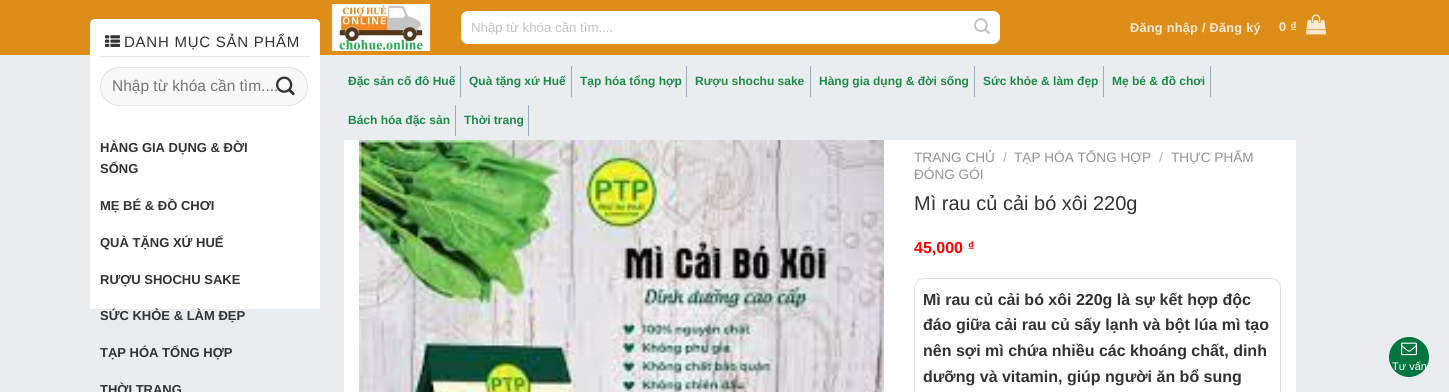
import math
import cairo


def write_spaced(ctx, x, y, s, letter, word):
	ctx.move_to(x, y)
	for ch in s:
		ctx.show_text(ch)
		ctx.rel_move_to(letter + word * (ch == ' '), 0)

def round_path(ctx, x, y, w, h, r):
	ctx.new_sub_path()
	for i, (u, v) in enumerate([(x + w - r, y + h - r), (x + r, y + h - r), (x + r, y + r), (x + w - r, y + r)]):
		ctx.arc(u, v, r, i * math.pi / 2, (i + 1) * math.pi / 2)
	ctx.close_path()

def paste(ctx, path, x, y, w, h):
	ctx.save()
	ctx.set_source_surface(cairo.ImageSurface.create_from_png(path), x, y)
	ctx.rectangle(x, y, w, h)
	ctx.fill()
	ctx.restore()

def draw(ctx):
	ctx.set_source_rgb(0.914, 0.929, 0.941)
	ctx.paint()
	ctx.set_source_rgb(0.867, 0.557, 0.094)
	ctx.rectangle(0, 0, 1449, 55)
	ctx.fill()
	paste(ctx, 'media/1.png', 331, 4, 100, 47)
	ctx.set_source_rgb(1, 1, 1)
	round_path(ctx, 461, 11, 539, 33, 7)
	ctx.fill()
	round_path(ctx, 461.5, 11.5, 538, 32, 6.5)
	ctx.set_source_rgba(1, 1, 1, 0.09)
	ctx.set_line_width(1)
	ctx.stroke()
	ctx.select_font_face('Liberation Sans')
	ctx.set_font_size(13.25)
	ctx.set_source_rgb(0.773, 0.757, 0.757)
	ctx.move_to(471, 32)
	ctx.show_text('Nhập từ khóa cần tìm....')
	paste(ctx, 'media/2.png', 974, 18, 16, 16)
	ctx.select_font_face('Liberation Sans', cairo.FONT_SLANT_NORMAL, cairo.FONT_WEIGHT_BOLD)
	ctx.set_font_size(12.75)
	ctx.set_source_rgb(0.973, 0.91, 0.82)
	write_spaced(ctx, 1130, 32, 'Đăng nhập / Đăng ký', 0.25, 0)
	write_spaced(ctx, 1279, 31, '0 ₫', 0.25, 0)
	paste(ctx, 'media/3.png', 1306, 14, 20, 21)
	ctx.set_source_rgb(1, 1, 1)
	ctx.new_path()
	ctx.move_to(95, 19)
	ctx.line_to(315, 19)
	ctx.curve_to(318, 19, 320, 21, 320, 24)
	ctx.line_to(320, 57)
	ctx.line_to(90, 57)
	ctx.line_to(90, 24)
	ctx.curve_to(90, 21, 92, 19, 95, 19)
	ctx.close_path()
	ctx.fill()
	ctx.set_source_rgb(0.898, 0.898, 0.898)
	ctx.rectangle(100, 56, 210, 1)
	ctx.fill()
	paste(ctx, 'media/4.png', 105, 35, 15, 12)
	ctx.select_font_face('Liberation Sans')
	ctx.set_font_size(15)
	ctx.set_source_rgb(0.2, 0.2, 0.2)
	write_spaced(ctx, 124, 47, 'DANH MỤC SẢN PHẨM', 0.75, 0)
	ctx.set_source_rgb(1, 1, 1)
	ctx.rectangle(90, 57, 230, 252)
	ctx.fill()
	ctx.set_source_rgb(0.969, 0.969, 0.969)
	round_path(ctx, 100, 67, 208, 39, 19.5)
	ctx.fill()
	round_path(ctx, 100.5, 67.5, 207, 38, 19)
	ctx.set_source_rgba(0, 0, 0, 0.09)
	ctx.stroke()
	ctx.set_font_size(15.5)
	ctx.set_source_rgb(0.459, 0.459, 0.459)
	ctx.move_to(112, 91)
	ctx.show_text('Nhập từ khóa cần tìm....')
	paste(ctx, 'media/5.png', 276, 76, 19, 20)
	ctx.select_font_face('Liberation Sans', cairo.FONT_SLANT_NORMAL, cairo.FONT_WEIGHT_BOLD)
	ctx.set_font_size(13)
	ctx.set_source_rgb(0.2, 0.2, 0.2)
	for x, y, s in [
		(100, 152, 'HÀNG GIA DỤNG & ĐỜI'),
		(100, 173, 'SỐNG'),
		(100, 210, 'MẸ BÉ & ĐỒ CHƠI'),
		(100, 247, 'QUÀ TẶNG XỨ HUẾ'),
		(100, 284, 'RƯỢU SHOCHU SAKE'),
		(100, 320, 'SỨC KHỎE & LÀM ĐẸP'),
		(100, 357, 'TẠP HÓA TỔNG HỢP'),
		(100, 394, 'THỜI TRANG'),
	]:
		ctx.move_to(x, y)
		ctx.show_text(s)
	ctx.set_source_rgb(1, 1, 1)
	ctx.rectangle(344, 140, 952, 252)
	ctx.fill()
	ctx.set_source_rgb(0.592, 0.682, 0.749)
	ctx.rectangle(460, 66, 1, 31)
	ctx.fill()
	ctx.set_font_size(12)
	ctx.set_source_rgb(0.122, 0.545, 0.282)
	ctx.move_to(348, 85)
	ctx.show_text('Đặc sản cố đô Huế')
	ctx.set_source_rgb(0.592, 0.682, 0.749)
	ctx.rectangle(571, 66, 1, 31)
	ctx.fill()
	ctx.set_source_rgb(0.122, 0.545, 0.282)
	ctx.move_to(469, 85)
	ctx.show_text('Quà tặng xứ Huế')
	ctx.set_source_rgb(0.592, 0.682, 0.749)
	ctx.rectangle(686, 66, 1, 31)
	ctx.fill()
	ctx.set_source_rgb(0.122, 0.545, 0.282)
	ctx.move_to(580, 85)
	ctx.show_text('Tạp hóa tổng hợp')
	ctx.set_source_rgb(0.592, 0.682, 0.749)
	ctx.rectangle(810, 66, 1, 31)
	ctx.fill()
	ctx.set_source_rgb(0.122, 0.545, 0.282)
	ctx.move_to(695, 85)
	ctx.show_text('Rượu shochu sake')
	ctx.set_source_rgb(0.592, 0.682, 0.749)
	ctx.rectangle(974, 66, 1, 31)
	ctx.fill()
	ctx.set_source_rgb(0.122, 0.545, 0.282)
	ctx.move_to(819, 85)
	ctx.show_text('Hàng gia dụng & đời sống')
	ctx.set_source_rgb(0.592, 0.682, 0.749)
	ctx.rectangle(1103, 66, 1, 31)
	ctx.fill()
	ctx.set_source_rgb(0.122, 0.545, 0.282)
	ctx.move_to(983, 85)
	ctx.show_text('Sức khỏe & làm đẹp')
	ctx.set_source_rgb(0.592, 0.682, 0.749)
	ctx.rectangle(1210, 66, 1, 31)
	ctx.fill()
	ctx.set_source_rgb(0.122, 0.545, 0.282)
	ctx.move_to(1112, 85)
	ctx.show_text('Mẹ bé & đồ chơi')
	ctx.set_source_rgb(0.592, 0.682, 0.749)
	ctx.rectangle(455, 105, 1, 31)
	ctx.fill()
	ctx.set_source_rgb(0.122, 0.545, 0.282)
	ctx.move_to(348, 124)
	ctx.show_text('Bách hóa đặc sản')
	ctx.set_source_rgb(0.592, 0.682, 0.749)
	ctx.rectangle(528, 105, 1, 31)
	ctx.fill()
	ctx.set_source_rgb(0.122, 0.545, 0.282)
	ctx.move_to(464, 124)
	ctx.show_text('Thời trang')
	paste(ctx, 'media/6.png', 359, 140, 525, 252)
	ctx.select_font_face('Liberation Sans')
	ctx.set_font_size(13.6)
	ctx.set_source_rgb(0.58, 0.58, 0.58)
	ctx.move_to(914, 162)
	ctx.show_text('TRANG CHỦ')
	ctx.set_source_rgb(0.698, 0.698, 0.698)
	ctx.move_to(1003, 162)
	ctx.show_text('/')
	ctx.set_source_rgb(0.58, 0.58, 0.58)
	ctx.move_to(1014, 162)
	ctx.show_text('TẠP HÓA TỔNG HỢP')
	ctx.set_source_rgb(0.698, 0.698, 0.698)
	ctx.move_to(1159, 162)
	ctx.show_text('/')
	ctx.set_source_rgb(0.58, 0.58, 0.58)
	ctx.move_to(1171, 162)
	ctx.show_text('THỰC PHẨM')
	ctx.move_to(914, 179)
	ctx.show_text('ĐÓNG GÓI')
	ctx.set_font_size(20)
	ctx.set_source_rgb(0.2, 0.2, 0.2)
	ctx.move_to(914, 210)
	ctx.show_text('Mì rau củ cải bó xôi 220g')
	ctx.select_font_face('Liberation Sans', cairo.FONT_SLANT_NORMAL, cairo.FONT_WEIGHT_BOLD)
	ctx.set_font_size(16)
	ctx.set_source_rgb(1, 0, 0)
	ctx.move_to(914, 253)
	ctx.show_text('45,000')
	ctx.set_font_size(12)
	ctx.move_to(968, 250)
	ctx.show_text('₫')
	round_path(ctx, 914.5, 278.5, 366, 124, 9.5)
	ctx.set_source_rgb(0.867, 0.867, 0.867)
	ctx.stroke()
	ctx.set_font_size(16)
	ctx.set_source_rgb(0.2, 0.2, 0.2)
	for x, y, s in [
		(923, 305, 'Mì rau củ cải bó xôi 220g là sự kết hợp độc'),
		(923, 330, 'đáo giữa cải rau củ sấy lạnh và bột lúa mì tạo'),
		(923, 356, 'nên sợi mì chứa nhiều các khoáng chất, dinh'),
		(923, 382, 'dưỡng và vitamin, giúp người ăn bổ sung'),
	]:
		ctx.move_to(x, y)
		ctx.show_text(s)
	ctx.set_source_rgb(0.012, 0.463, 0.243)
	ctx.new_path()
	ctx.arc(1409, 357, 20, 0, 2 * math.pi)
	ctx.fill()
	paste(ctx, 'media/7.png', 1401, 342, 16, 14)
	ctx.select_font_face('Liberation Sans')
	ctx.set_font_size(11)
	ctx.set_source_rgb(1, 1, 1)
	ctx.move_to(1392, 370)
	ctx.show_text('Tư vấn')


surface = cairo.ImageSurface(cairo.FORMAT_RGB24, 1449, 392)
ctx = cairo.Context(surface)
options = cairo.FontOptions()
options.set_hint_metrics(cairo.HINT_METRICS_OFF)
options.set_hint_style(cairo.HINT_STYLE_NONE)
ctx.set_font_options(options)
ctx.set_miter_limit(4)
draw(ctx)
surface.write_to_png('image.png')
